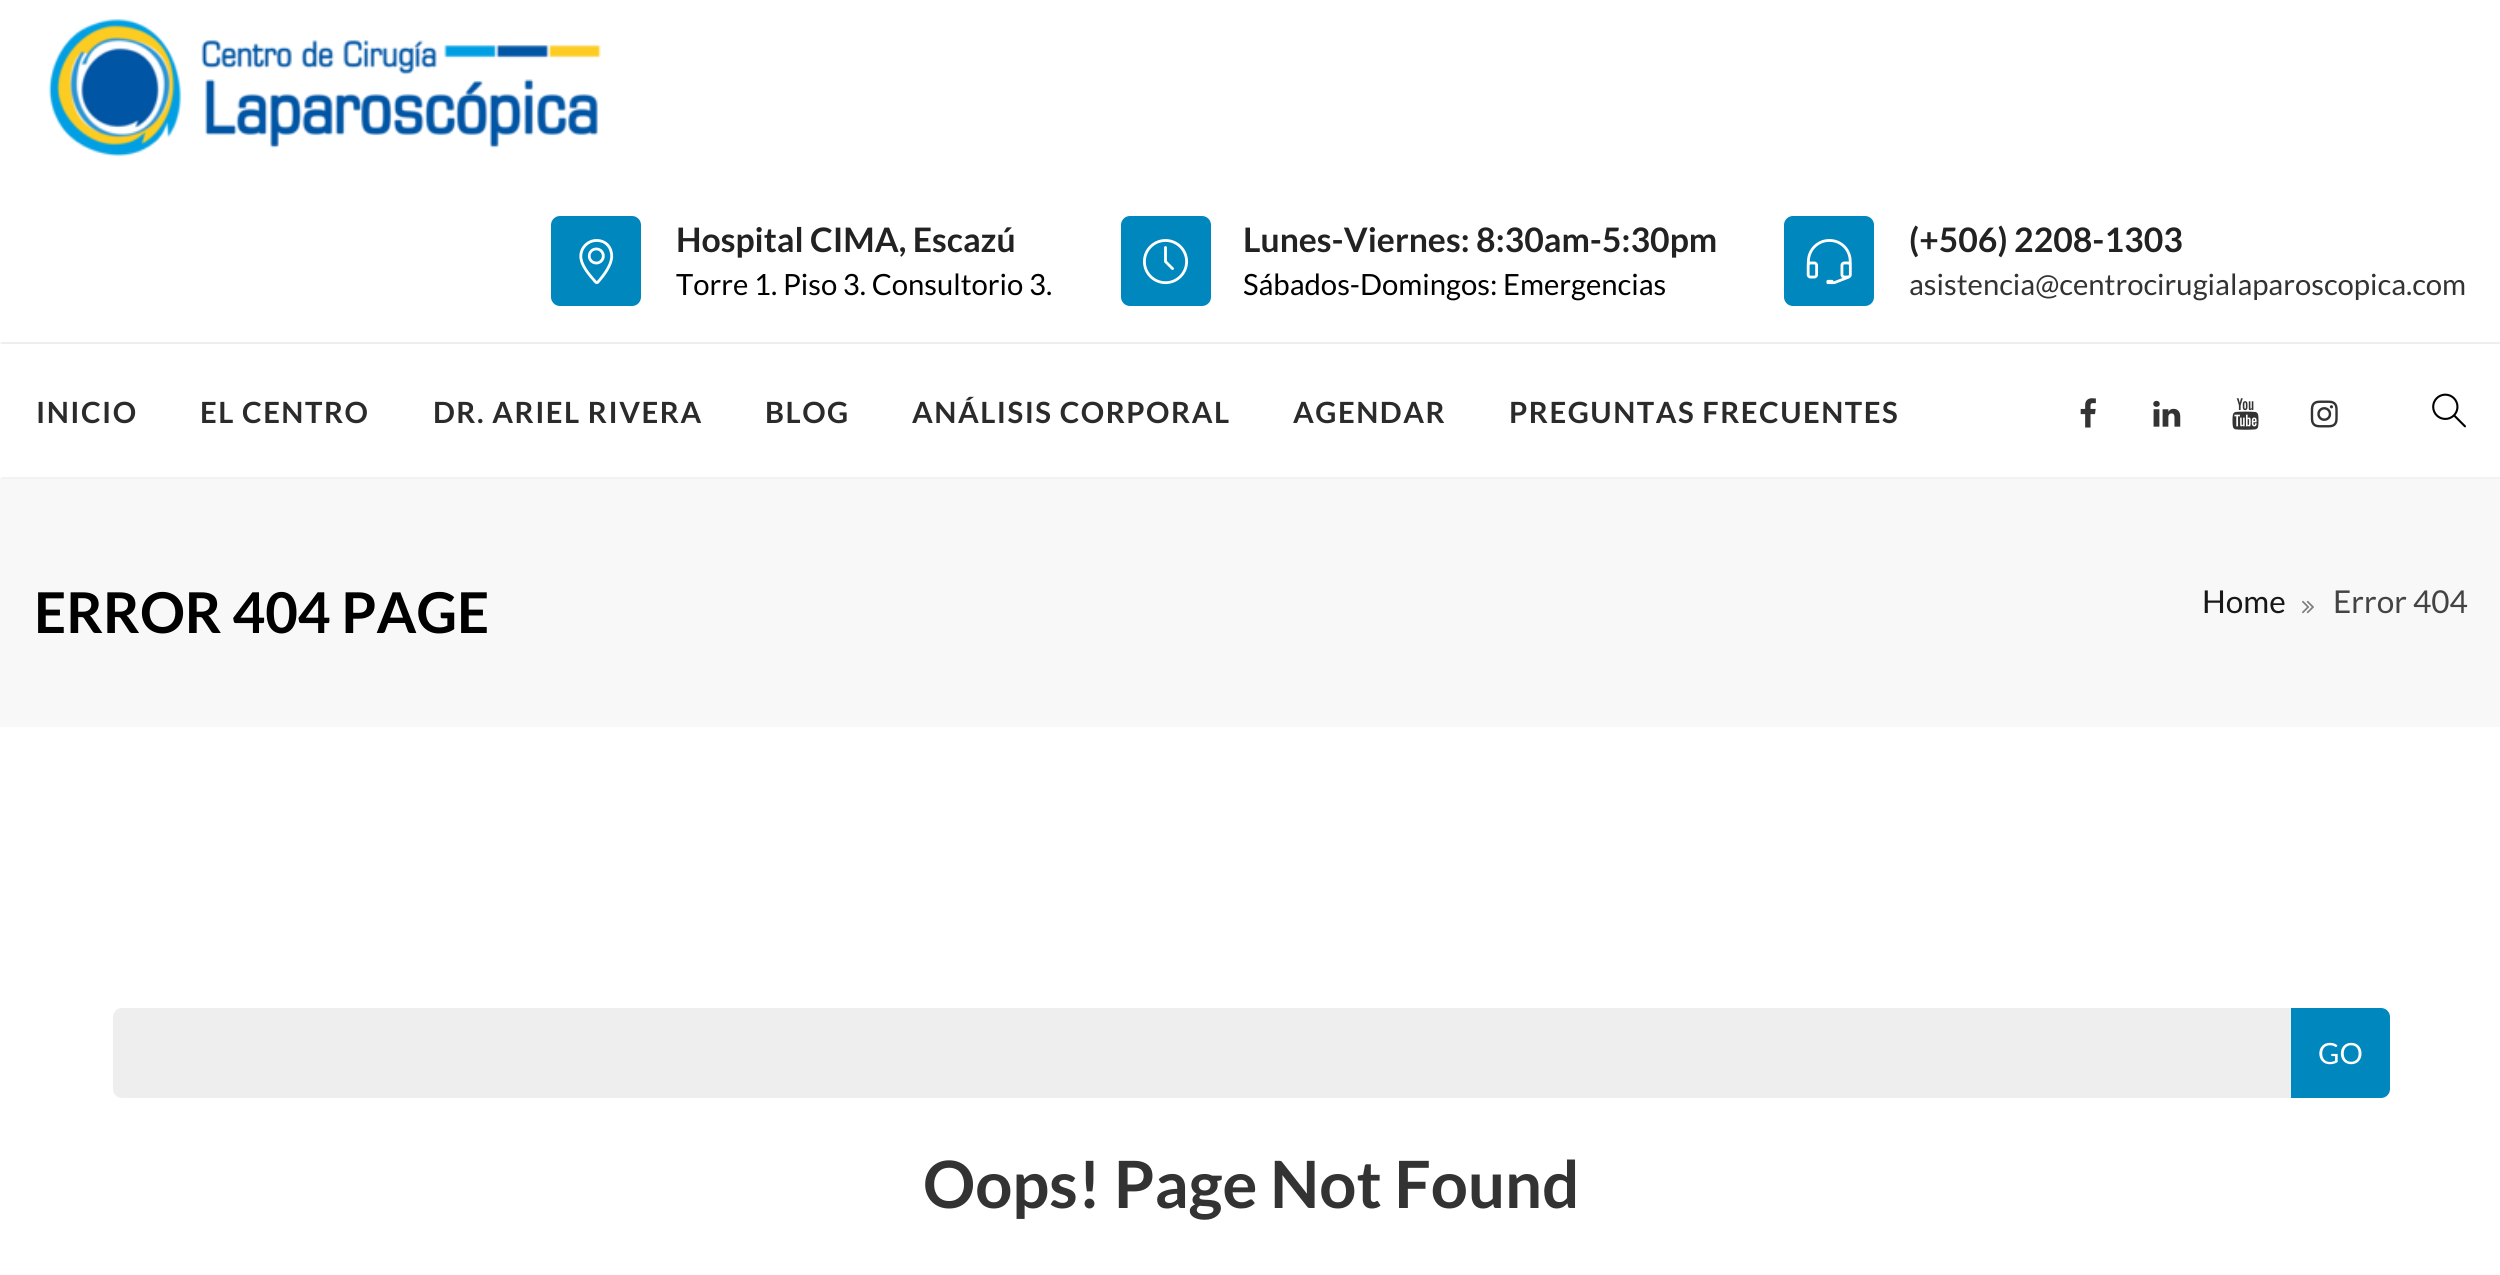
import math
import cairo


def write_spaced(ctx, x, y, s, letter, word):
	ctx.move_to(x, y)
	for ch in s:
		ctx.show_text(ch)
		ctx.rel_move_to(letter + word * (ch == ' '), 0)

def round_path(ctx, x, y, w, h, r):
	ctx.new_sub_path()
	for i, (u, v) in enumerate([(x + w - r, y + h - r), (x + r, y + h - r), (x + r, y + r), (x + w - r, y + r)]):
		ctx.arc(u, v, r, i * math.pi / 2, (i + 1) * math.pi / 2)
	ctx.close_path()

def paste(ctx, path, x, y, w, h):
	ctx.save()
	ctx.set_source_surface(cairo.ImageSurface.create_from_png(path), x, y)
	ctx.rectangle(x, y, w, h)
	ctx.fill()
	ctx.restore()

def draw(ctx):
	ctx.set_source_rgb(1, 1, 1)
	ctx.paint()
	ctx.set_source_rgb(0.933, 0.933, 0.933)
	ctx.new_path()
	ctx.move_to(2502, 344)
	ctx.line_to(0, 344)
	ctx.line_to(2, 342)
	ctx.line_to(2500, 342)
	ctx.close_path()
	ctx.fill()
	paste(ctx, 'media/1.png', 48, 19, 553, 138)
	ctx.set_source_rgb(0, 0.529, 0.745)
	round_path(ctx, 551, 216, 90, 90, 9)
	ctx.fill()
	paste(ctx, 'media/2.png', 579, 239, 35, 45)
	ctx.select_font_face('Lato', cairo.FONT_SLANT_NORMAL, cairo.FONT_WEIGHT_BOLD)
	ctx.set_font_size(33.75)
	ctx.set_source_rgb(0.133, 0.133, 0.133)
	ctx.move_to(676, 252)
	ctx.show_text('Hospital CIMA, Escazú')
	ctx.select_font_face('Lato')
	ctx.set_font_size(29.25)
	ctx.set_source_rgb(0, 0, 0)
	ctx.move_to(676, 295)
	ctx.show_text('Torre 1. Piso 3. Consultorio 3.')
	ctx.set_source_rgb(0, 0.529, 0.745)
	round_path(ctx, 1121, 216, 90, 90, 9)
	ctx.fill()
	paste(ctx, 'media/3.png', 1143, 239, 45, 46)
	ctx.select_font_face('Lato', cairo.FONT_SLANT_NORMAL, cairo.FONT_WEIGHT_BOLD)
	ctx.set_font_size(33.75)
	ctx.set_source_rgb(0.133, 0.133, 0.133)
	ctx.move_to(1243, 252)
	ctx.show_text('Lunes-Viernes: 8:30am-5:30pm')
	ctx.select_font_face('Lato')
	ctx.set_font_size(29.25)
	ctx.set_source_rgb(0, 0, 0)
	ctx.move_to(1243, 295)
	ctx.show_text('Sábados-Domingos: Emergencias')
	ctx.set_source_rgb(0, 0.529, 0.745)
	round_path(ctx, 1784, 216, 90, 90, 9)
	ctx.fill()
	paste(ctx, 'media/4.png', 1806, 239, 46, 46)
	ctx.select_font_face('Lato', cairo.FONT_SLANT_NORMAL, cairo.FONT_WEIGHT_BOLD)
	ctx.set_font_size(33.75)
	ctx.set_source_rgb(0.133, 0.133, 0.133)
	ctx.move_to(1909, 252)
	ctx.show_text('(+506) 2208-1303')
	ctx.select_font_face('Lato')
	ctx.set_font_size(29.25)
	ctx.set_source_rgb(0.2, 0.2, 0.2)
	ctx.move_to(1909, 295)
	ctx.show_text('asistencia@centrocirugialaparoscopica.com')
	ctx.set_source_rgb(0.949, 0.949, 0.949)
	ctx.new_path()
	ctx.move_to(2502, 479)
	ctx.line_to(0, 479)
	ctx.line_to(2, 477)
	ctx.line_to(2500, 477)
	ctx.close_path()
	ctx.fill()
	ctx.select_font_face('Lato', cairo.FONT_SLANT_NORMAL, cairo.FONT_WEIGHT_BOLD)
	ctx.set_source_rgb(0.169, 0.169, 0.169)
	for x, y, s in [
		(36, 423, 'INICIO'),
		(200, 423, 'EL CENTRO'),
		(433, 423, 'DR. ARIEL RIVERA'),
		(765, 423, 'BLOG'),
		(912, 423, 'ANÁLISIS CORPORAL'),
		(1293, 423, 'AGENDAR'),
		(1509, 423, 'PREGUNTAS FRECUENTES'),
	]:
		write_spaced(ctx, x, y, s, 1.5, 0)
	paste(ctx, 'media/5.png', 2080, 398, 16, 30)
	paste(ctx, 'media/6.png', 2153, 400, 28, 27)
	paste(ctx, 'media/7.png', 2232, 398, 27, 32)
	paste(ctx, 'media/8.png', 2310, 400, 28, 28)
	paste(ctx, 'media/9.png', 2432, 393, 34, 35)
	ctx.set_source_rgb(0.969, 0.969, 0.969)
	ctx.rectangle(0, 479, 2500, 248)
	ctx.fill()
	ctx.set_font_size(56.25)
	ctx.set_source_rgb(0, 0, 0)
	ctx.move_to(34, 633)
	ctx.show_text('ERROR 404 PAGE')
	ctx.select_font_face('Lato')
	ctx.set_font_size(31.5)
	ctx.set_source_rgb(0.09, 0.09, 0.09)
	ctx.move_to(2202, 613)
	ctx.show_text('Home')
	paste(ctx, 'media/10.png', 2302, 600, 12, 14)
	ctx.set_source_rgb(0.267, 0.267, 0.267)
	ctx.move_to(2333, 613)
	ctx.show_text('Error 404')
	ctx.set_source_rgb(0.933, 0.933, 0.933)
	ctx.new_path()
	ctx.move_to(122, 1008)
	ctx.line_to(2291, 1008)
	ctx.line_to(2291, 1098)
	ctx.line_to(122, 1098)
	ctx.curve_to(117, 1098, 113, 1094, 113, 1089)
	ctx.line_to(113, 1017)
	ctx.curve_to(113, 1012, 117, 1008, 122, 1008)
	ctx.close_path()
	ctx.fill()
	ctx.set_source_rgb(0, 0.529, 0.745)
	ctx.new_path()
	ctx.move_to(2291, 1008)
	ctx.line_to(2381, 1008)
	ctx.curve_to(2386, 1008, 2390, 1012, 2390, 1017)
	ctx.line_to(2390, 1089)
	ctx.curve_to(2390, 1094, 2386, 1098, 2381, 1098)
	ctx.line_to(2291, 1098)
	ctx.close_path()
	ctx.fill()
	ctx.set_font_size(29.25)
	ctx.set_source_rgb(1, 1, 1)
	ctx.move_to(2318, 1064)
	ctx.show_text('GO')
	ctx.select_font_face('Lato', cairo.FONT_SLANT_NORMAL, cairo.FONT_WEIGHT_BOLD)
	ctx.set_font_size(65.25)
	ctx.set_source_rgb(0.2, 0.2, 0.2)
	ctx.move_to(923, 1208)
	ctx.show_text('Oops! Page Not Found')


surface = cairo.ImageSurface(cairo.FORMAT_RGB24, 2500, 1275)
ctx = cairo.Context(surface)
options = cairo.FontOptions()
options.set_hint_metrics(cairo.HINT_METRICS_OFF)
options.set_hint_style(cairo.HINT_STYLE_NONE)
ctx.set_font_options(options)
ctx.set_miter_limit(4)
draw(ctx)
surface.write_to_png('image.png')
